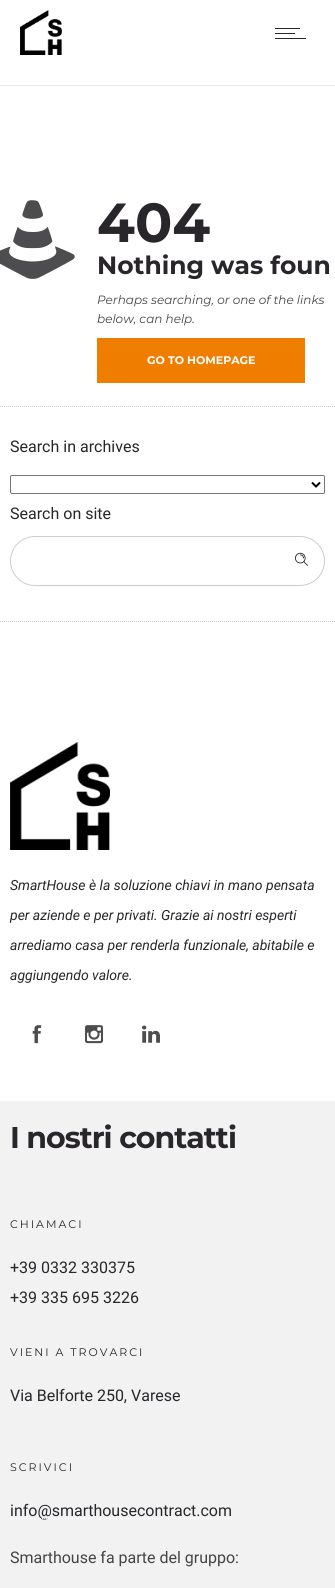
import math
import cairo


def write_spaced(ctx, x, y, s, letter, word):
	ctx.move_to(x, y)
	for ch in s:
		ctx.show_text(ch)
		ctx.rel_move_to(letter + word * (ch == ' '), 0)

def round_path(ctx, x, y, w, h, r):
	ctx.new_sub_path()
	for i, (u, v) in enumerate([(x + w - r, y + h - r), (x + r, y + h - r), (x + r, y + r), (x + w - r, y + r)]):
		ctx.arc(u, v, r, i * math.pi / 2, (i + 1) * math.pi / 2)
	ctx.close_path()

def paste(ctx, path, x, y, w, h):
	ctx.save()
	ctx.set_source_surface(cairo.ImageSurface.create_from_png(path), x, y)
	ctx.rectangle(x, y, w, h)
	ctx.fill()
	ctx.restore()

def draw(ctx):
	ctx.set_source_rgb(1, 1, 1)
	ctx.paint()
	ctx.set_source_rgb(0.918, 0.914, 0.918)
	ctx.rectangle(0, 85, 335, 1)
	ctx.fill()
	paste(ctx, 'media/1.png', 20, 10, 42, 45)
	ctx.set_source_rgb(0.157, 0.149, 0.169)
	ctx.rectangle(275, 28, 25, 1)
	ctx.rectangle(275, 33, 20, 1)
	ctx.rectangle(275, 38, 31, 1)
	ctx.fill()
	paste(ctx, 'media/2.png', 0, 200, 75, 79)
	ctx.select_font_face('Montserrat', cairo.FONT_SLANT_NORMAL, cairo.FONT_WEIGHT_BOLD)
	ctx.set_font_size(55)
	ctx.move_to(97, 242)
	ctx.show_text('404')
	ctx.set_font_size(25)
	ctx.move_to(97, 274)
	ctx.show_text('Nothing was foun')
	ctx.select_font_face('Montserrat', cairo.FONT_SLANT_ITALIC)
	ctx.set_font_size(12)
	ctx.set_source_rgb(0.271, 0.267, 0.267)
	ctx.move_to(97, 304)
	ctx.show_text('Perhaps searching, or one of the links')
	ctx.move_to(97, 323)
	ctx.show_text('below, can help.')
	ctx.set_source_rgb(0.937, 0.49, 0)
	ctx.rectangle(97, 338, 208, 45)
	ctx.fill()
	ctx.select_font_face('Montserrat', cairo.FONT_SLANT_NORMAL, cairo.FONT_WEIGHT_BOLD)
	ctx.set_font_size(11)
	ctx.set_source_rgb(1, 1, 1)
	ctx.move_to(147, 364)
	ctx.show_text('GO TO HOMEPAGE')
	ctx.new_path()
	ctx.move_to(0, 406.5)
	ctx.line_to(335, 406.5)
	ctx.set_source_rgb(0.804, 0.804, 0.804)
	ctx.set_line_width(1)
	ctx.set_dash([1, 1])
	ctx.stroke()
	ctx.new_path()
	ctx.move_to(0, 621.5)
	ctx.line_to(335, 621.5)
	ctx.stroke()
	ctx.select_font_face('Roboto')
	ctx.set_font_size(16)
	ctx.set_source_rgb(0.157, 0.149, 0.169)
	ctx.move_to(10, 452)
	ctx.show_text('Search in archives')
	round_path(ctx, 10.5, 475.5, 314, 18, 1.5)
	ctx.set_source_rgb(0.463, 0.463, 0.463)
	ctx.set_dash([])
	ctx.stroke()
	ctx.new_path()
	ctx.move_to(312, 482.5)
	ctx.line_to(316, 486.5)
	ctx.line_to(320, 482.5)
	ctx.set_source_rgb(0, 0, 0)
	ctx.set_line_width(2)
	ctx.stroke()
	ctx.set_source_rgb(0.157, 0.149, 0.169)
	ctx.move_to(10, 519)
	ctx.show_text('Search on site')
	paste(ctx, 'media/3.png', 295, 552, 13, 14)
	round_path(ctx, 10.5, 536.5, 314, 49, 24.5)
	ctx.set_source_rgb(0.804, 0.804, 0.804)
	ctx.set_line_width(1)
	ctx.stroke()
	paste(ctx, 'media/4.png', 10, 742, 100, 108)
	ctx.select_font_face('Roboto', cairo.FONT_SLANT_ITALIC)
	ctx.set_font_size(14)
	ctx.set_source_rgb(0.157, 0.149, 0.169)
	for x, y, s in [
		(10, 890, 'SmartHouse è la soluzione chiavi in mano pensata'),
		(10, 920, 'per aziende e per privati. Grazie ai nostri esperti'),
		(10, 950, 'arrediamo casa per renderla funzionale, abitabile e'),
		(10, 980, 'aggiungendo valore.'),
	]:
		ctx.move_to(x, y)
		ctx.show_text(s)
	paste(ctx, 'media/5.png', 32, 1025, 10, 19)
	paste(ctx, 'media/6.png', 85, 1025, 18, 19)
	paste(ctx, 'media/7.png', 142, 1025, 18, 18)
	ctx.set_source_rgb(0.949, 0.949, 0.949)
	ctx.rectangle(0, 1101, 335, 487)
	ctx.fill()
	ctx.select_font_face('Montserrat', cairo.FONT_SLANT_NORMAL, cairo.FONT_WEIGHT_BOLD)
	ctx.set_font_size(30)
	ctx.set_source_rgb(0.157, 0.149, 0.169)
	write_spaced(ctx, 10, 1148, 'I nostri contatti', -1, 0)
	ctx.select_font_face('Montserrat')
	ctx.set_font_size(11)
	write_spaced(ctx, 10, 1228, 'CHIAMACI', 2, 0)
	ctx.select_font_face('Roboto')
	ctx.set_font_size(16)
	ctx.move_to(10, 1273)
	ctx.show_text('+39 0332 330375')
	ctx.move_to(10, 1303)
	ctx.show_text('+39 335 695 3226')
	ctx.select_font_face('Montserrat')
	ctx.set_font_size(11)
	write_spaced(ctx, 10, 1356, 'VIENI A TROVARCI', 2, 0)
	ctx.select_font_face('Roboto')
	ctx.set_font_size(16)
	ctx.move_to(10, 1401)
	ctx.show_text('Via Belforte 250, Varese')
	ctx.select_font_face('Montserrat')
	ctx.set_font_size(11)
	write_spaced(ctx, 10, 1471, 'SCRIVICI', 2, 0)
	ctx.select_font_face('Roboto')
	ctx.set_font_size(16)
	ctx.move_to(10, 1516)
	ctx.show_text('info@smarthousecontract.com')
	ctx.new_path()
	ctx.move_to(10, 1518.5)
	ctx.line_to(232, 1518.5)
	ctx.set_source_rgb(1, 1, 1)
	ctx.set_dash([1, 1])
	ctx.stroke()
	ctx.set_source_rgb(0.271, 0.267, 0.267)
	ctx.move_to(10, 1563)
	ctx.show_text('Smarthouse fa parte del gruppo:')


surface = cairo.ImageSurface(cairo.FORMAT_RGB24, 335, 1588)
ctx = cairo.Context(surface)
options = cairo.FontOptions()
options.set_hint_metrics(cairo.HINT_METRICS_OFF)
options.set_hint_style(cairo.HINT_STYLE_NONE)
ctx.set_font_options(options)
ctx.set_miter_limit(4)
draw(ctx)
surface.write_to_png('image.png')
